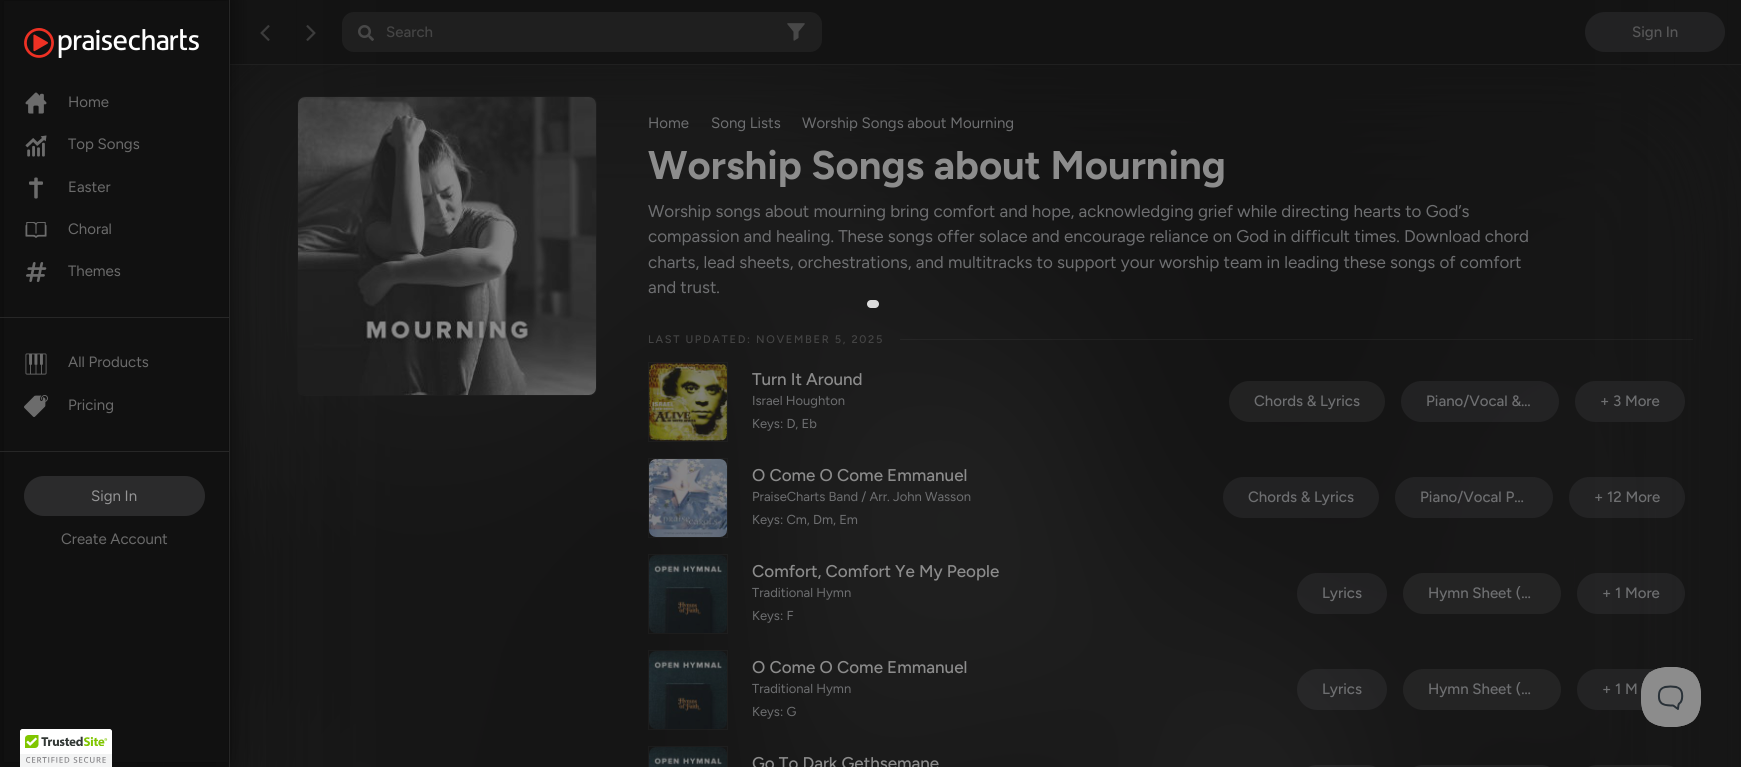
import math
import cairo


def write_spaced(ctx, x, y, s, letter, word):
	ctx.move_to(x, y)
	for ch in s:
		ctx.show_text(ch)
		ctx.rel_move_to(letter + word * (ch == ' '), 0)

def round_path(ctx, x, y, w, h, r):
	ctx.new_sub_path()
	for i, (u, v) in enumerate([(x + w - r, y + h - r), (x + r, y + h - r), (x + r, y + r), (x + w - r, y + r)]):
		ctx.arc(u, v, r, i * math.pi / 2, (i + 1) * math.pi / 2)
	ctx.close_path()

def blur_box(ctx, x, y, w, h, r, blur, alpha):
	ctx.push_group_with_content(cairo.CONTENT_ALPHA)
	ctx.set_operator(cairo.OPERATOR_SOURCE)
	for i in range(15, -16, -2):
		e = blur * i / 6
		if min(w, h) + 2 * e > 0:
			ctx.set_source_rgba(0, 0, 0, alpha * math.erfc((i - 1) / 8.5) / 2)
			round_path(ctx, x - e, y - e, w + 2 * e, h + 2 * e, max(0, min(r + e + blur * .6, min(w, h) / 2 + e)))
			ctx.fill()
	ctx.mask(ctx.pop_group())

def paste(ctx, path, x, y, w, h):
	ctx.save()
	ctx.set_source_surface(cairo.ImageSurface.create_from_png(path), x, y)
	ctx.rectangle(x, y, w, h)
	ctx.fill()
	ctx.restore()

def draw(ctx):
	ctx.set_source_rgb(0.082, 0.082, 0.082)
	ctx.paint()
	paste(ctx, 'media/13.png', 230, 65, 1511, 702)
	ctx.set_source_rgb(0.071, 0.071, 0.071)
	blur_box(ctx, 230, -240, 1511, 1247, 0, 80, 0.5)
	ctx.set_source_rgb(0.125, 0.125, 0.125)
	ctx.rectangle(230, 64, 1511, 1)
	ctx.fill()
	paste(ctx, 'media/9.png', 260, 25, 10, 16)
	ctx.set_source_rgb(0, 0, 0)
	blur_box(ctx, 0, -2, 230, 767, 0, 11, 0.5)
	ctx.set_source_rgb(0.067, 0.067, 0.067)
	ctx.rectangle(4, 1, 224, 761)
	ctx.fill()
	ctx.set_source_rgb(0.153, 0.153, 0.153)
	ctx.rectangle(229, 0, 1, 767)
	ctx.fill()
	paste(ctx, 'media/1.png', 24, 28, 175, 30)
	ctx.rectangle(0, 317, 229, 1)
	ctx.fill()
	paste(ctx, 'media/2.png', 25, 92, 22, 22)
	ctx.select_font_face('Figtree')
	ctx.set_font_size(15)
	ctx.set_source_rgb(0.42, 0.42, 0.42)
	ctx.move_to(68, 107)
	ctx.show_text('Home')
	paste(ctx, 'media/3.png', 25, 135, 22, 22)
	ctx.move_to(68, 149)
	ctx.show_text('Top Songs')
	paste(ctx, 'media/4.png', 29, 177, 14, 22)
	ctx.move_to(68, 192)
	ctx.show_text('Easter')
	paste(ctx, 'media/5.png', 25, 222, 22, 16)
	ctx.move_to(68, 234)
	ctx.show_text('Choral')
	paste(ctx, 'media/6.png', 26, 262, 21, 20)
	ctx.move_to(68, 276)
	ctx.show_text('Themes')
	ctx.set_source_rgb(0.153, 0.153, 0.153)
	ctx.rectangle(0, 451, 229, 1)
	ctx.fill()
	paste(ctx, 'media/7.png', 25, 353, 22, 22)
	ctx.set_source_rgb(0.42, 0.42, 0.42)
	ctx.move_to(68, 367)
	ctx.show_text('All Products')
	paste(ctx, 'media/8.png', 24, 395, 24, 22)
	ctx.move_to(68, 410)
	ctx.show_text('Pricing')
	ctx.set_source_rgb(0.169, 0.169, 0.173)
	round_path(ctx, 24, 476, 181, 40, 20)
	ctx.fill()
	ctx.set_source_rgb(0.584, 0.584, 0.588)
	ctx.move_to(91, 501)
	ctx.show_text('Sign In')
	ctx.set_source_rgb(0.42, 0.42, 0.42)
	ctx.move_to(61, 544)
	ctx.show_text('Create Account')
	paste(ctx, 'media/10.png', 306, 25, 10, 16)
	ctx.set_source_rgb(0.122, 0.122, 0.122)
	round_path(ctx, 342, 12, 480, 40, 12)
	ctx.fill()
	paste(ctx, 'media/11.png', 358, 25, 16, 16)
	ctx.select_font_face('Figtree Medium')
	ctx.set_source_rgb(0.271, 0.271, 0.271)
	ctx.move_to(386, 37)
	ctx.show_text('Search')
	paste(ctx, 'media/12.png', 787, 23, 18, 18)
	ctx.set_source_rgb(0.133, 0.133, 0.137)
	round_path(ctx, 1585, 12, 140, 40, 20)
	ctx.fill()
	ctx.set_source_rgb(0.341, 0.341, 0.345)
	ctx.move_to(1632, 37)
	ctx.show_text('Sign In')
	ctx.new_path()
	ctx.move_to(594.5, 98.5)
	ctx.curve_to(595.5, 100, 596.5, 102, 596.5, 104)
	ctx.line_to(596.5, 388)
	ctx.curve_to(596.5, 390, 595.5, 392, 594.5, 393.5)
	ctx.curve_to(593, 394.5, 591, 395.5, 589, 395.5)
	ctx.line_to(305, 395.5)
	ctx.curve_to(303, 395.5, 301, 394.5, 299.5, 393.5)
	ctx.set_source_rgba(0.443, 0.443, 0.443, 0.06)
	ctx.set_line_width(1)
	ctx.stroke()
	ctx.new_path()
	ctx.move_to(299.5, 393.5)
	ctx.curve_to(298.5, 392, 297.5, 390, 297.5, 388)
	ctx.line_to(297.5, 104)
	ctx.curve_to(297.5, 102, 298.5, 100, 299.5, 98.5)
	ctx.curve_to(301, 97.5, 303, 96.5, 305, 96.5)
	ctx.line_to(589, 96.5)
	ctx.curve_to(591, 96.5, 593, 97.5, 594.5, 98.5)
	ctx.set_source_rgba(0.31, 0.31, 0.31, 0.06)
	ctx.stroke()
	paste(ctx, 'media/14.png', 298, 97, 298, 298)
	ctx.select_font_face('Figtree')
	ctx.set_source_rgb(0.431, 0.435, 0.443)
	for x, y, s in [
		(648, 128, 'Home'),
		(711, 128, 'Song Lists'),
		(802, 128, 'Worship Songs about Mourning'),
	]:
		ctx.move_to(x, y)
		ctx.show_text(s)
	ctx.select_font_face('Figtree', cairo.FONT_SLANT_NORMAL, cairo.FONT_WEIGHT_BOLD)
	ctx.set_font_size(40)
	ctx.set_source_rgb(0.549, 0.549, 0.549)
	ctx.move_to(648, 179)
	ctx.show_text('Worship Songs about Mourning')
	ctx.select_font_face('Figtree')
	ctx.set_font_size(17)
	ctx.set_source_rgb(0.431, 0.435, 0.443)
	for x, y, s in [
		(648, 217, 'Worship songs about mourning bring comfort and hope, acknowledging grief while directing hearts to God’s'),
		(648, 242, 'compassion and healing. These songs offer solace and encourage reliance on God in difficult times. Download chord'),
		(648, 268, 'charts, lead sheets, orchestrations, and multitracks to support your worship team in leading these songs of comfort'),
		(648, 293, 'and trust.'),
	]:
		ctx.move_to(x, y)
		ctx.show_text(s)
	ctx.select_font_face('Figtree Medium')
	ctx.set_font_size(11)
	ctx.set_source_rgb(0.271, 0.271, 0.271)
	write_spaced(ctx, 648, 343, 'LAST UPDATED: NOVEMBER 5, 2025', 1.7, 0)
	ctx.set_source_rgba(0.443, 0.443, 0.443, 0.12)
	ctx.rectangle(900, 339, 793, 1)
	ctx.fill()
	ctx.rectangle(648.5, 362.5, 79, 79)
	ctx.set_source_rgba(0.549, 0.549, 0.549, 0.06)
	ctx.stroke()
	paste(ctx, 'media/15.png', 649, 363, 78, 78)
	ctx.set_font_size(17)
	ctx.set_source_rgb(0.549, 0.549, 0.549)
	ctx.move_to(752, 385)
	ctx.show_text('Turn It Around')
	ctx.select_font_face('Figtree')
	ctx.set_font_size(13)
	ctx.set_source_rgb(0.431, 0.435, 0.443)
	ctx.move_to(752, 405)
	ctx.show_text('Israel Houghton')
	ctx.move_to(752, 428)
	ctx.show_text('Keys: D, Eb')
	ctx.set_source_rgb(0.133, 0.133, 0.133)
	round_path(ctx, 1229, 381, 156, 41, 20.5)
	ctx.fill()
	ctx.select_font_face('Figtree Medium')
	ctx.set_font_size(15)
	ctx.set_source_rgb(0.431, 0.435, 0.443)
	ctx.move_to(1254, 406)
	ctx.show_text('Chords & Lyrics')
	ctx.set_source_rgba(0.514, 0.51, 0.522, 0.12)
	round_path(ctx, 1401, 381, 158, 41, 20.5)
	ctx.fill()
	ctx.set_source_rgb(0.431, 0.435, 0.443)
	ctx.move_to(1426, 406)
	ctx.show_text('Piano/Vocal &…')
	ctx.set_source_rgb(0.137, 0.137, 0.141)
	round_path(ctx, 1575, 381, 110, 41, 20.5)
	ctx.fill()
	ctx.set_source_rgb(0.431, 0.435, 0.443)
	ctx.move_to(1600, 406)
	ctx.show_text('+ 3 More')
	ctx.rectangle(648.5, 458.5, 79, 79)
	ctx.set_source_rgba(0.549, 0.549, 0.549, 0.06)
	ctx.stroke()
	paste(ctx, 'media/16.png', 649, 459, 78, 78)
	ctx.set_font_size(17)
	ctx.set_source_rgb(0.549, 0.549, 0.549)
	ctx.move_to(752, 481)
	ctx.show_text('O Come O Come Emmanuel')
	ctx.select_font_face('Figtree')
	ctx.set_font_size(13)
	ctx.set_source_rgb(0.431, 0.435, 0.443)
	ctx.move_to(752, 501)
	ctx.show_text('PraiseCharts Band / Arr. John Wasson')
	ctx.move_to(752, 524)
	ctx.show_text('Keys: Cm, Dm, Em')
	ctx.set_source_rgb(0.133, 0.133, 0.137)
	round_path(ctx, 1223, 477, 156, 41, 20.5)
	ctx.fill()
	ctx.select_font_face('Figtree Medium')
	ctx.set_font_size(15)
	ctx.set_source_rgb(0.431, 0.435, 0.443)
	ctx.move_to(1248, 502)
	ctx.show_text('Chords & Lyrics')
	ctx.set_source_rgba(0.514, 0.51, 0.522, 0.12)
	round_path(ctx, 1395, 477, 158, 41, 20.5)
	ctx.fill()
	ctx.set_source_rgb(0.431, 0.435, 0.443)
	ctx.move_to(1420, 502)
	ctx.show_text('Piano/Vocal P…')
	ctx.set_source_rgba(0.514, 0.51, 0.522, 0.12)
	round_path(ctx, 1569, 477, 116, 41, 20.5)
	ctx.fill()
	ctx.set_source_rgb(0.431, 0.435, 0.443)
	ctx.move_to(1594, 502)
	ctx.show_text('+ 12 More')
	ctx.rectangle(648.5, 554.5, 79, 79)
	ctx.set_source_rgba(0.549, 0.549, 0.549, 0.06)
	ctx.stroke()
	paste(ctx, 'media/17.png', 649, 555, 78, 78)
	ctx.set_font_size(17)
	ctx.set_source_rgb(0.549, 0.549, 0.549)
	ctx.move_to(752, 577)
	ctx.show_text('Comfort, Comfort Ye My People')
	ctx.select_font_face('Figtree')
	ctx.set_font_size(13)
	ctx.set_source_rgb(0.431, 0.435, 0.443)
	ctx.move_to(752, 597)
	ctx.show_text('Traditional Hymn')
	ctx.move_to(752, 620)
	ctx.show_text('Keys: F')
	ctx.set_source_rgba(0.514, 0.51, 0.522, 0.12)
	round_path(ctx, 1297, 573, 90, 41, 20.5)
	ctx.fill()
	ctx.select_font_face('Figtree Medium')
	ctx.set_font_size(15)
	ctx.set_source_rgb(0.431, 0.435, 0.443)
	ctx.move_to(1322, 598)
	ctx.show_text('Lyrics')
	ctx.set_source_rgb(0.141, 0.141, 0.141)
	round_path(ctx, 1403, 573, 158, 41, 20.5)
	ctx.fill()
	ctx.set_source_rgb(0.431, 0.435, 0.443)
	ctx.move_to(1428, 598)
	ctx.show_text('Hymn Sheet (…')
	ctx.set_source_rgba(0.514, 0.51, 0.522, 0.12)
	round_path(ctx, 1577, 573, 108, 41, 20.5)
	ctx.fill()
	ctx.set_source_rgb(0.431, 0.435, 0.443)
	ctx.move_to(1602, 598)
	ctx.show_text('+ 1 More')
	ctx.rectangle(648.5, 650.5, 79, 79)
	ctx.set_source_rgba(0.549, 0.549, 0.549, 0.06)
	ctx.stroke()
	paste(ctx, 'media/18.png', 649, 651, 78, 78)
	ctx.set_font_size(17)
	ctx.set_source_rgb(0.549, 0.549, 0.549)
	ctx.move_to(752, 673)
	ctx.show_text('O Come O Come Emmanuel')
	ctx.select_font_face('Figtree')
	ctx.set_font_size(13)
	ctx.set_source_rgb(0.431, 0.435, 0.443)
	ctx.move_to(752, 693)
	ctx.show_text('Traditional Hymn')
	ctx.move_to(752, 716)
	ctx.show_text('Keys: G')
	ctx.set_source_rgba(0.514, 0.51, 0.522, 0.12)
	round_path(ctx, 1297, 669, 90, 41, 20.5)
	ctx.fill()
	ctx.select_font_face('Figtree Medium')
	ctx.set_font_size(15)
	ctx.set_source_rgb(0.431, 0.435, 0.443)
	ctx.move_to(1322, 694)
	ctx.show_text('Lyrics')
	ctx.set_source_rgb(0.141, 0.141, 0.141)
	round_path(ctx, 1403, 669, 158, 41, 20.5)
	ctx.fill()
	ctx.set_source_rgb(0.431, 0.435, 0.443)
	ctx.move_to(1428, 694)
	ctx.show_text('Hymn Sheet (…')
	ctx.set_source_rgb(0.137, 0.137, 0.141)
	round_path(ctx, 1577, 669, 108, 41, 20.5)
	ctx.fill()
	ctx.set_source_rgb(0.431, 0.435, 0.443)
	ctx.move_to(1602, 694)
	ctx.show_text('+ 1 M')
	ctx.rectangle(648.5, 746.5, 79, 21)
	ctx.set_source_rgba(0.549, 0.549, 0.549, 0.06)
	ctx.stroke()
	paste(ctx, 'media/19.png', 649, 747, 78, 20)
	ctx.set_font_size(17)
	ctx.set_source_rgb(0.549, 0.549, 0.549)
	ctx.move_to(752, 769)
	ctx.show_text('Go To Dark Gethsemane')
	ctx.set_source_rgba(0.514, 0.51, 0.522, 0.12)
	ctx.new_path()
	ctx.move_to(1317.5, 765)
	ctx.line_to(1366.5, 765)
	ctx.curve_to(1378, 765, 1387, 774, 1387, 785.5)
	ctx.line_to(1387, 767)
	ctx.line_to(1297, 767)
	ctx.line_to(1297, 785.5)
	ctx.curve_to(1297, 774, 1306, 765, 1317.5, 765)
	ctx.close_path()
	ctx.fill()
	ctx.set_source_rgb(0.137, 0.137, 0.141)
	ctx.new_path()
	ctx.move_to(1423.5, 765)
	ctx.line_to(1540.5, 765)
	ctx.curve_to(1552, 765, 1561, 774, 1561, 785.5)
	ctx.line_to(1561, 767)
	ctx.line_to(1403, 767)
	ctx.line_to(1403, 785.5)
	ctx.curve_to(1403, 774, 1412, 765, 1423.5, 765)
	ctx.close_path()
	ctx.fill()
	ctx.set_source_rgb(0.137, 0.137, 0.137)
	ctx.new_path()
	ctx.move_to(1597.5, 765)
	ctx.line_to(1664.5, 765)
	ctx.curve_to(1676, 765, 1685, 774, 1685, 785.5)
	ctx.line_to(1685, 767)
	ctx.line_to(1577, 767)
	ctx.line_to(1577, 785.5)
	ctx.curve_to(1577, 774, 1586, 765, 1597.5, 765)
	ctx.close_path()
	ctx.fill()
	ctx.new_path()
	ctx.move_to(871, 304)
	ctx.line_to(875, 304)
	ctx.set_source_rgb(0.867, 0.867, 0.867)
	ctx.set_line_width(8)
	ctx.set_line_cap(cairo.LINE_CAP_ROUND)
	ctx.stroke()
	paste(ctx, 'media/20.png', 1641, 667, 60, 60)
	paste(ctx, 'media/21.png', 20, 729, 92, 38)


surface = cairo.ImageSurface(cairo.FORMAT_RGB24, 1741, 767)
ctx = cairo.Context(surface)
options = cairo.FontOptions()
options.set_hint_metrics(cairo.HINT_METRICS_OFF)
options.set_hint_style(cairo.HINT_STYLE_NONE)
ctx.set_font_options(options)
ctx.set_miter_limit(4)
draw(ctx)
surface.write_to_png('image.png')
